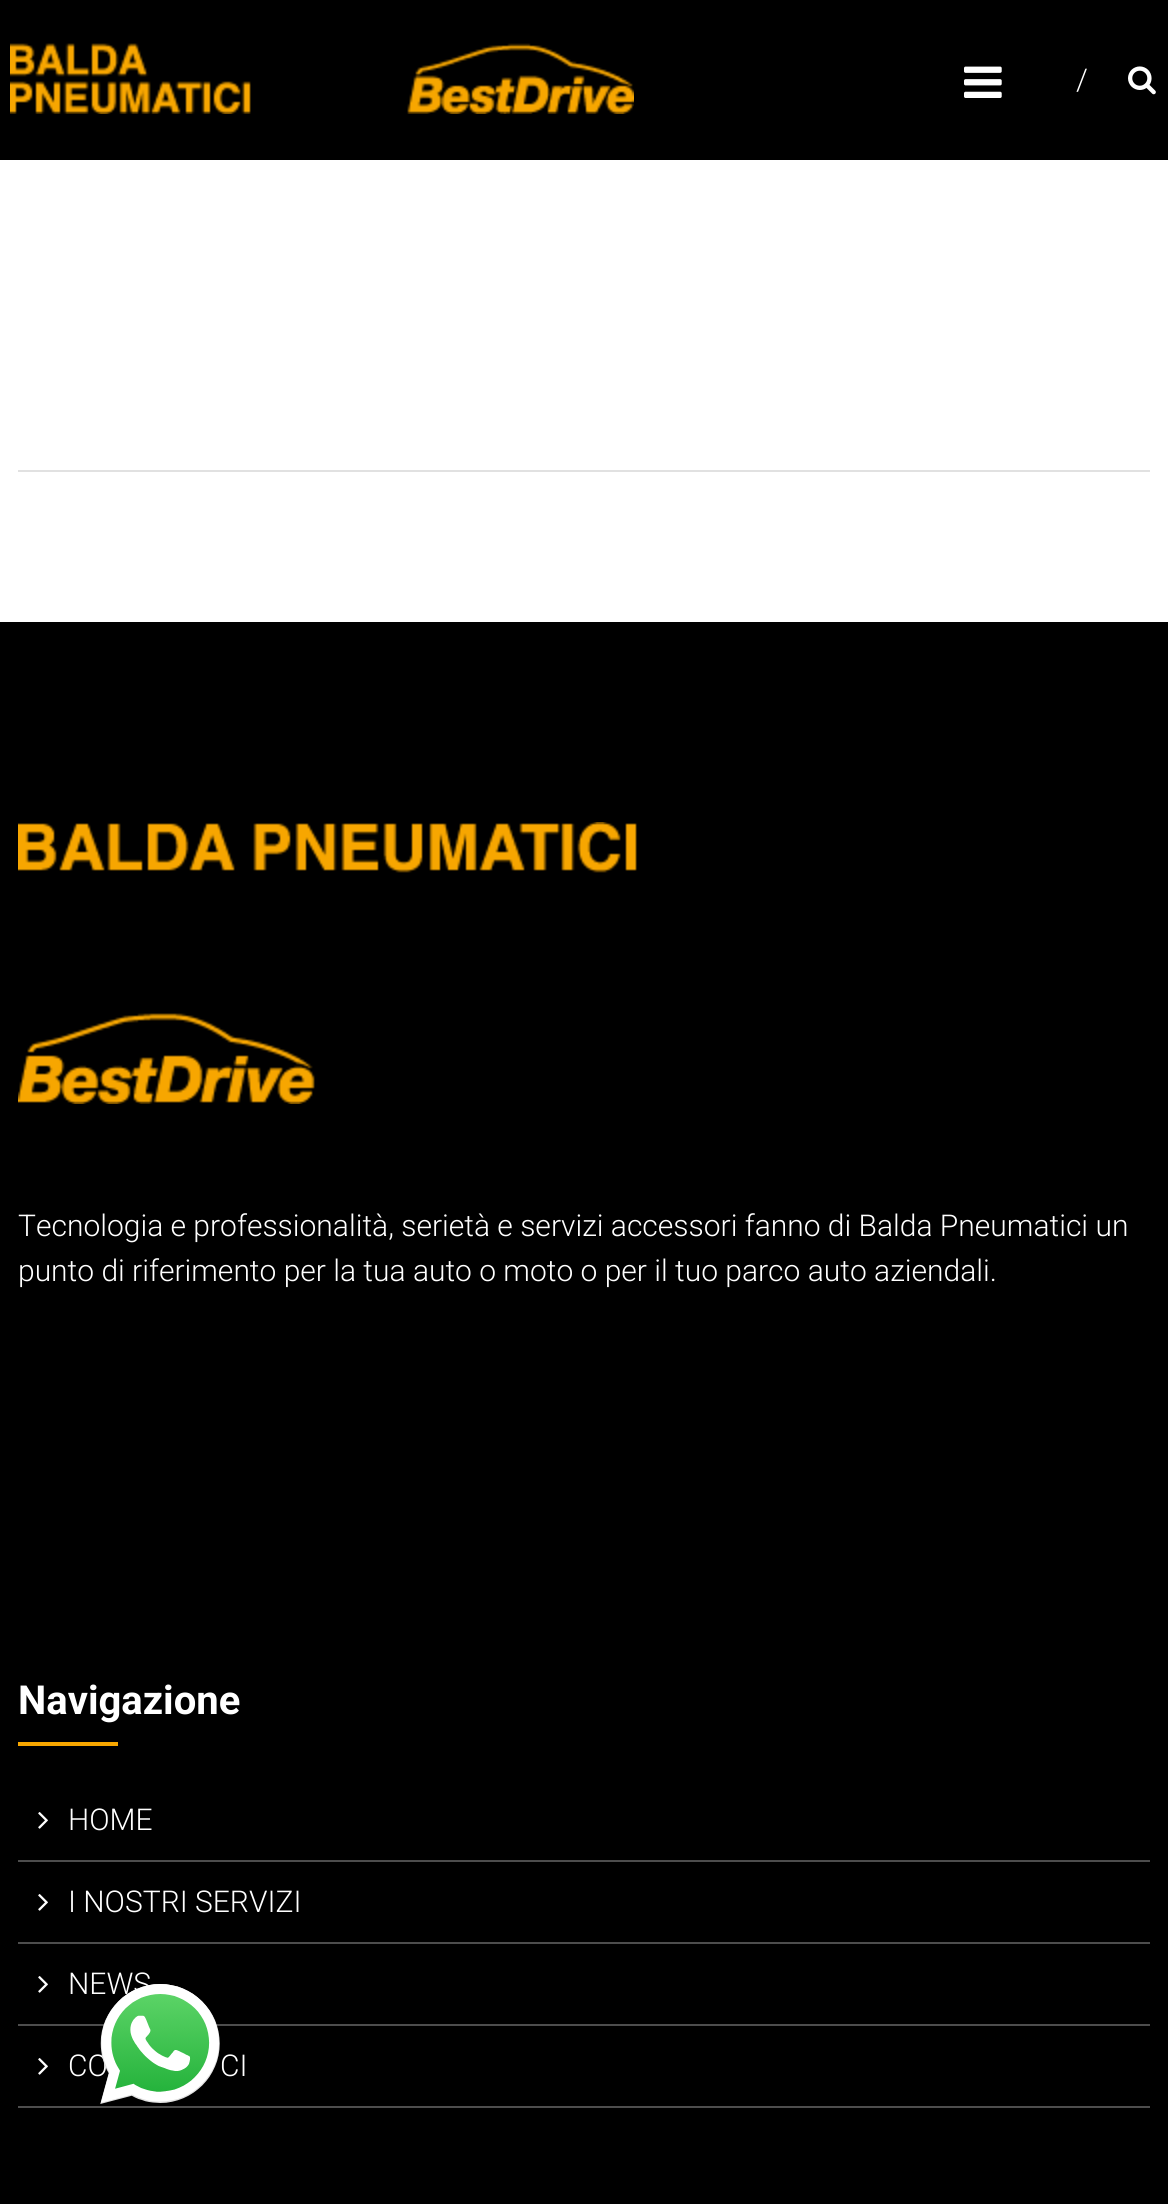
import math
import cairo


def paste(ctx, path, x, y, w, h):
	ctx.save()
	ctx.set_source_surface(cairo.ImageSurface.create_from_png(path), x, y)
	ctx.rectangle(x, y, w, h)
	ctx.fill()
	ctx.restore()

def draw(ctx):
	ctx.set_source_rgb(1, 1, 1)
	ctx.paint()
	ctx.set_source_rgb(0, 0, 0)
	ctx.rectangle(0, 0, 1168, 160)
	ctx.fill()
	paste(ctx, 'media/1.png', 10, 43, 624, 71)
	paste(ctx, 'media/2.png', 964, 66, 38, 32)
	ctx.select_font_face('Roboto Light')
	ctx.set_font_size(30)
	ctx.set_source_rgb(1, 1, 1)
	ctx.move_to(1076, 90)
	ctx.show_text('/')
	paste(ctx, 'media/3.png', 1128, 66, 28, 29)
	ctx.set_source_rgb(0.882, 0.882, 0.882)
	ctx.rectangle(18, 470, 1132, 2)
	ctx.fill()
	ctx.set_source_rgb(0, 0, 0)
	ctx.rectangle(0, 622, 1168, 1582)
	ctx.fill()
	paste(ctx, 'media/4.png', 18, 822, 619, 282)
	ctx.set_source_rgb(1, 1, 1)
	ctx.move_to(18, 1236)
	ctx.show_text('Tecnologia e professionalità, serietà e servizi accessori fanno di Balda Pneumatici un')
	ctx.move_to(18, 1281)
	ctx.show_text('punto di riferimento per la tua auto o moto o per il tuo parco auto aziendali.')
	ctx.select_font_face('Roboto', cairo.FONT_SLANT_NORMAL, cairo.FONT_WEIGHT_BOLD)
	ctx.set_font_size(40)
	ctx.move_to(18, 1714)
	ctx.show_text('Navigazione')
	ctx.set_source_rgb(0.969, 0.655, 0)
	ctx.rectangle(18, 1742, 100, 4)
	ctx.fill()
	ctx.set_source_rgb(0.302, 0.302, 0.302)
	ctx.rectangle(18, 1860, 1132, 2)
	ctx.fill()
	paste(ctx, 'media/5.png', 38, 1812, 10, 17)
	ctx.select_font_face('Roboto Light')
	ctx.set_font_size(30)
	ctx.set_source_rgb(1, 1, 1)
	ctx.move_to(68, 1830)
	ctx.show_text('HOME')
	ctx.set_source_rgb(0.302, 0.302, 0.302)
	ctx.rectangle(18, 1942, 1132, 2)
	ctx.fill()
	paste(ctx, 'media/5.png', 38, 1894, 10, 17)
	ctx.set_source_rgb(1, 1, 1)
	ctx.move_to(68, 1912)
	ctx.show_text('I NOSTRI SERVIZI')
	ctx.set_source_rgb(0.302, 0.302, 0.302)
	ctx.rectangle(18, 2024, 1132, 2)
	ctx.fill()
	paste(ctx, 'media/5.png', 38, 1976, 10, 17)
	ctx.set_source_rgb(1, 1, 1)
	ctx.move_to(68, 1994)
	ctx.show_text('NEWS')
	ctx.set_source_rgb(0.302, 0.302, 0.302)
	ctx.rectangle(18, 2106, 1132, 2)
	ctx.fill()
	paste(ctx, 'media/5.png', 38, 2058, 10, 17)
	ctx.set_source_rgb(1, 1, 1)
	ctx.move_to(68, 2076)
	ctx.show_text('CO')
	ctx.move_to(220, 2076)
	ctx.show_text('CI')
	paste(ctx, 'media/6.png', 100, 1984, 120, 120)


surface = cairo.ImageSurface(cairo.FORMAT_RGB24, 1168, 2204)
ctx = cairo.Context(surface)
options = cairo.FontOptions()
options.set_hint_metrics(cairo.HINT_METRICS_OFF)
options.set_hint_style(cairo.HINT_STYLE_NONE)
ctx.set_font_options(options)
ctx.set_miter_limit(4)
draw(ctx)
surface.write_to_png('image.png')
